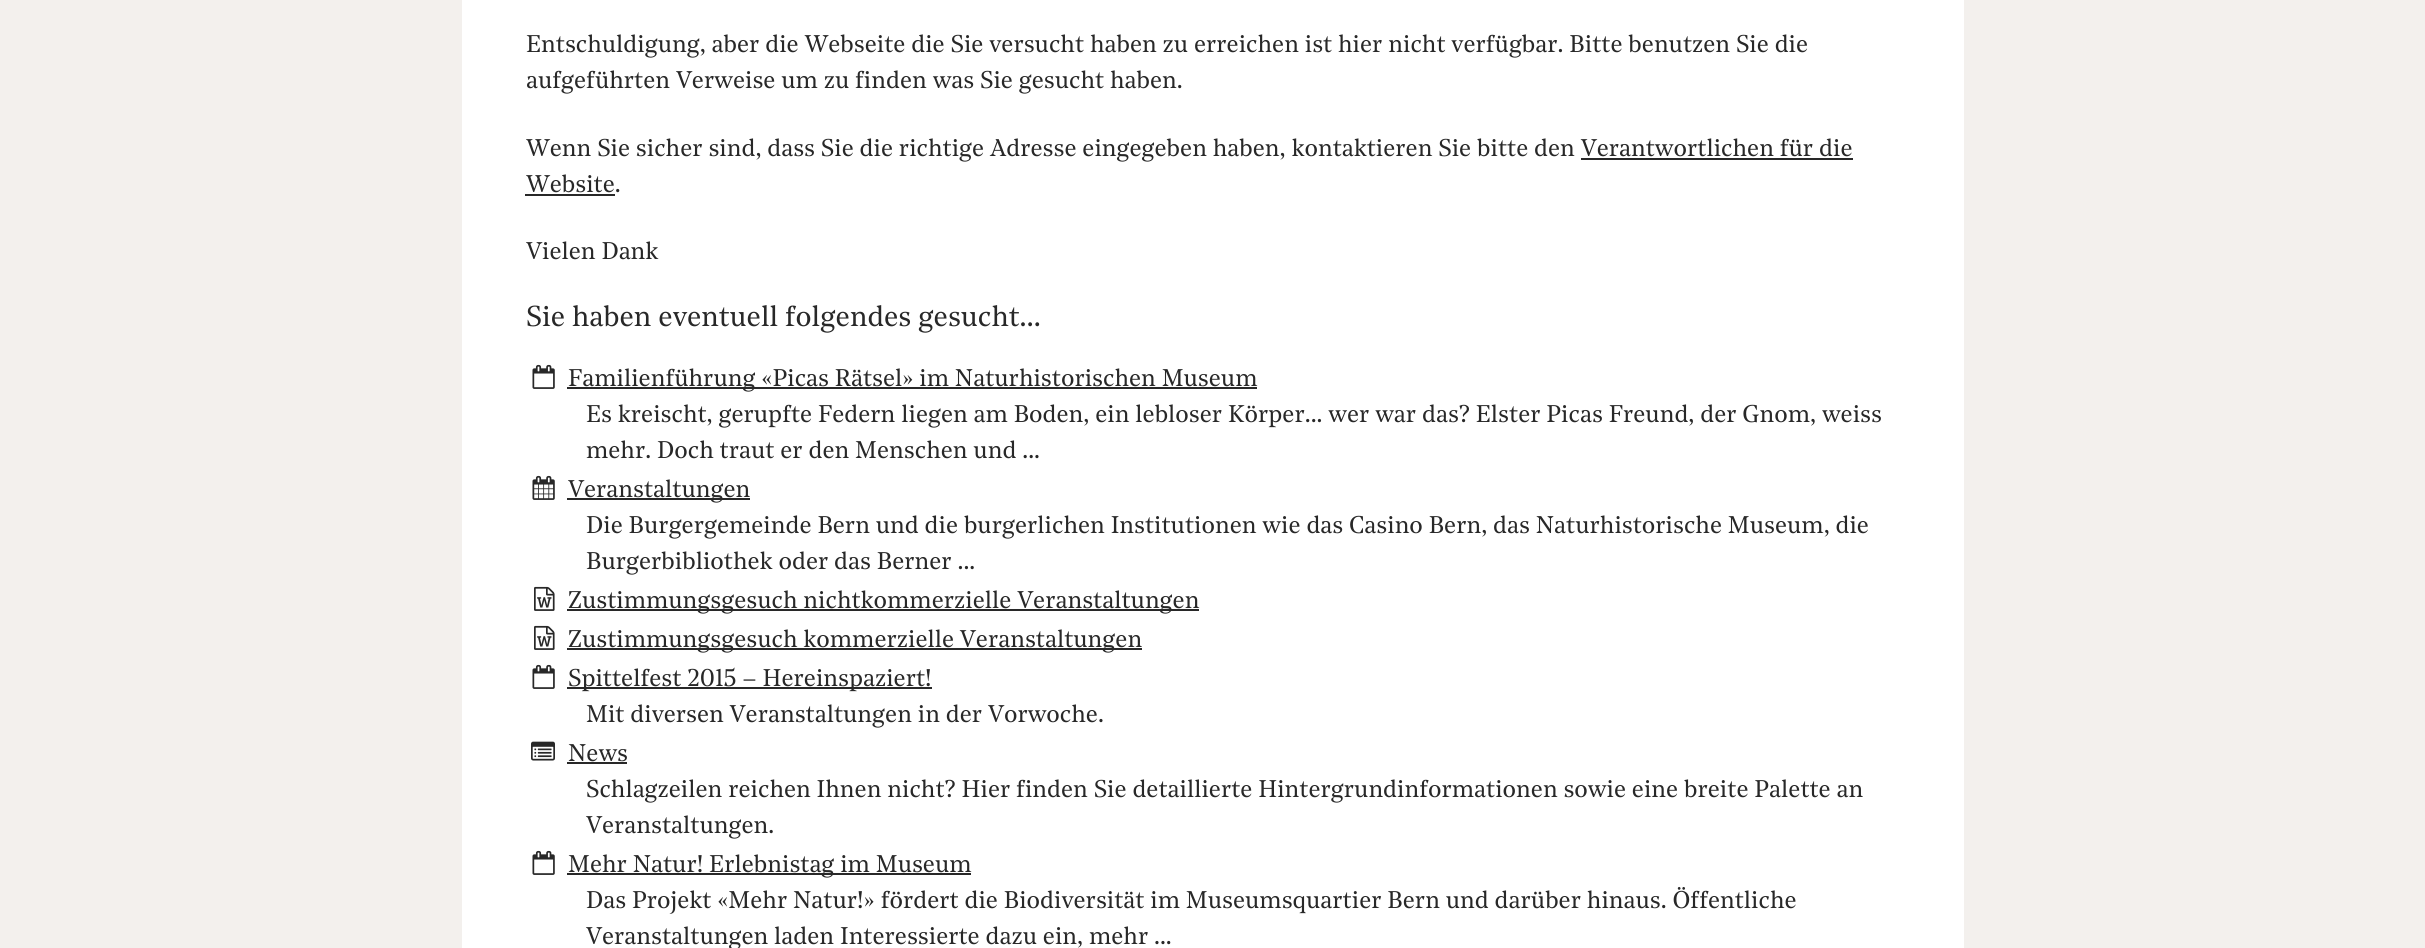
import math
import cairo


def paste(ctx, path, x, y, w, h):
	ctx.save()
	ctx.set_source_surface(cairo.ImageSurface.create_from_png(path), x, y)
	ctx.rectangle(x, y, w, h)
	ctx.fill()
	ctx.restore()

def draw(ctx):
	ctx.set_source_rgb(0.953, 0.941, 0.929)
	ctx.paint()
	ctx.set_source_rgb(1, 1, 1)
	ctx.rectangle(462, 0, 1502, 948)
	ctx.fill()
	ctx.select_font_face('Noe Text')
	ctx.set_font_size(24)
	ctx.set_source_rgb(0.157, 0.157, 0.157)
	for x, y, s in [
		(526, 52, 'Entschuldigung, aber die Webseite die Sie versucht haben zu erreichen ist hier nicht verfügbar. Bitte benutzen Sie die'),
		(526, 88, 'aufgeführten Verweise um zu finden was Sie gesucht haben.'),
		(526, 156, 'Wenn Sie sicher sind, dass Sie die richtige Adresse eingegeben haben, kontaktieren Sie bitte den Verantwortlichen für die'),
		(526, 192, 'Website.'),
	]:
		ctx.move_to(x, y)
		ctx.show_text(s)
	ctx.rectangle(1581, 158, 272, 2)
	ctx.fill()
	ctx.rectangle(525, 194, 90, 2)
	ctx.fill()
	ctx.move_to(526, 259)
	ctx.show_text('Vielen Dank')
	ctx.set_font_size(28.5)
	ctx.move_to(526, 326)
	ctx.show_text('Sie haben eventuell folgendes gesucht…')
	paste(ctx, 'media/1.png', 532, 364, 23, 25)
	ctx.rectangle(567, 387, 690, 2)
	ctx.fill()
	ctx.set_font_size(24)
	for x, y, s in [
		(568, 386, 'Familienführung «Picas Rätsel» im Naturhistorischen Museum'),
		(586, 422, 'Es kreischt, gerupfte Federn liegen am Boden, ein lebloser Körper... wer war das? Elster Picas Freund, der Gnom, weiss'),
		(586, 458, 'mehr. Doch traut er den Menschen und ...'),
	]:
		ctx.move_to(x, y)
		ctx.show_text(s)
	paste(ctx, 'media/2.png', 532, 475, 23, 25)
	ctx.rectangle(567, 498, 183, 2)
	ctx.fill()
	for x, y, s in [
		(568, 497, 'Veranstaltungen'),
		(586, 533, 'Die Burgergemeinde Bern und die burgerlichen Institutionen wie das Casino Bern, das Naturhistorische Museum, die'),
		(586, 569, 'Burgerbibliothek oder das Berner ...'),
	]:
		ctx.move_to(x, y)
		ctx.show_text(s)
	paste(ctx, 'media/3.png', 534, 586, 21, 25)
	ctx.rectangle(567, 609, 632, 2)
	ctx.fill()
	ctx.move_to(568, 608)
	ctx.show_text('Zustimmungsgesuch nichtkommerzielle Veranstaltungen')
	paste(ctx, 'media/3.png', 534, 625, 21, 25)
	ctx.rectangle(567, 648, 575, 2)
	ctx.fill()
	ctx.move_to(568, 647)
	ctx.show_text('Zustimmungsgesuch kommerzielle Veranstaltungen')
	paste(ctx, 'media/1.png', 532, 664, 23, 25)
	ctx.rectangle(567, 687, 365, 2)
	ctx.fill()
	ctx.move_to(568, 686)
	ctx.show_text('Spittelfest 2015 – Hereinspaziert!')
	ctx.move_to(586, 722)
	ctx.show_text('Mit diversen Veranstaltungen in der Vorwoche.')
	paste(ctx, 'media/4.png', 531, 741, 24, 20)
	ctx.move_to(568, 761)
	ctx.show_text('News')
	ctx.rectangle(567, 762, 60, 2)
	ctx.fill()
	ctx.move_to(586, 797)
	ctx.show_text('Schlagzeilen reichen Ihnen nicht? Hier finden Sie detaillierte Hintergrundinformationen sowie eine breite Palette an')
	ctx.move_to(586, 833)
	ctx.show_text('Veranstaltungen.')
	paste(ctx, 'media/1.png', 532, 850, 23, 25)
	ctx.rectangle(567, 873, 404, 2)
	ctx.fill()
	for x, y, s in [
		(568, 872, 'Mehr Natur! Erlebnistag im Museum'),
		(586, 908, 'Das Projekt «Mehr Natur!» fördert die Biodiversität im Museumsquartier Bern und darüber hinaus. Öffentliche'),
		(586, 944, 'Veranstaltungen laden Interessierte dazu ein, mehr ...'),
	]:
		ctx.move_to(x, y)
		ctx.show_text(s)


surface = cairo.ImageSurface(cairo.FORMAT_RGB24, 2425, 948)
ctx = cairo.Context(surface)
options = cairo.FontOptions()
options.set_hint_metrics(cairo.HINT_METRICS_OFF)
options.set_hint_style(cairo.HINT_STYLE_NONE)
ctx.set_font_options(options)
ctx.set_miter_limit(4)
draw(ctx)
surface.write_to_png('image.png')
